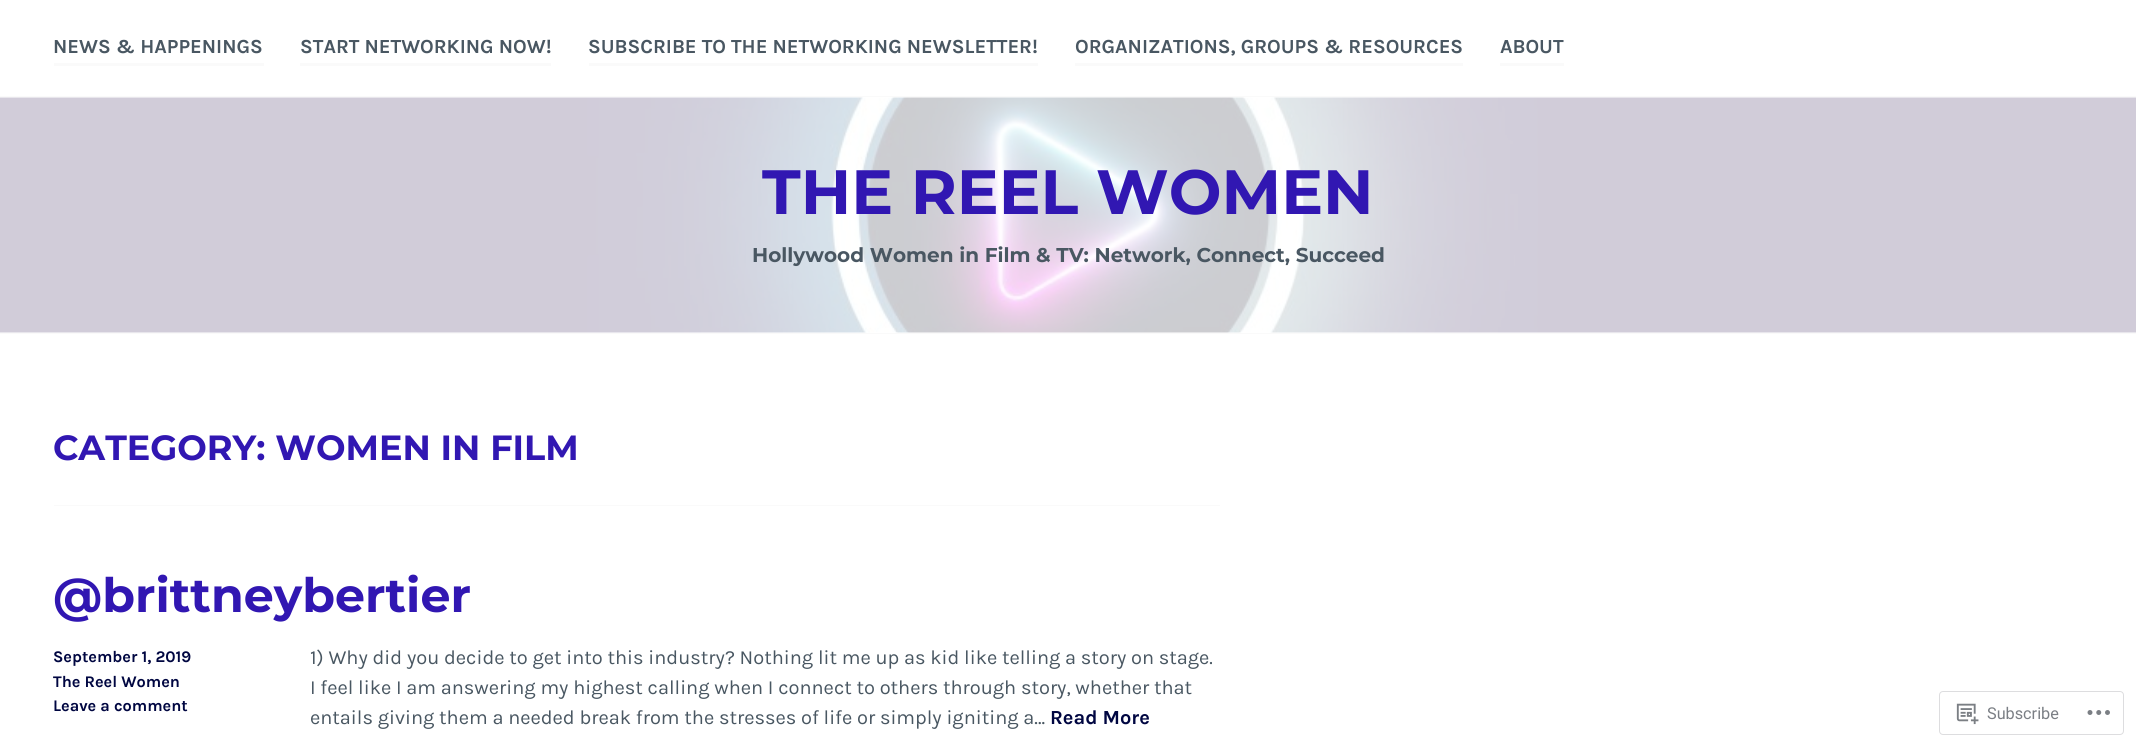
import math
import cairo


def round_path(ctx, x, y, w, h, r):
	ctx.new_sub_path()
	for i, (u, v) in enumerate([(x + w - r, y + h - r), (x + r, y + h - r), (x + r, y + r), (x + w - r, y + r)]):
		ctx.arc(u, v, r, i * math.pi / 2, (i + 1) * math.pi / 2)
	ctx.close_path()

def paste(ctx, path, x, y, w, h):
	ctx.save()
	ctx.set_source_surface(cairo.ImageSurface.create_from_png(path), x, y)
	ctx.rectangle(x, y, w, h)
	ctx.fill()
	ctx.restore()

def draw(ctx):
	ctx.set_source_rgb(1, 1, 1)
	ctx.paint()
	ctx.set_source_rgb(0.98, 0.98, 0.98)
	ctx.rectangle(0, 96, 2136, 1)
	ctx.fill()
	ctx.rectangle(54, 63, 210, 3)
	ctx.fill()
	ctx.select_font_face('Karla', cairo.FONT_SLANT_NORMAL, cairo.FONT_WEIGHT_BOLD)
	ctx.set_font_size(20)
	ctx.set_source_rgb(0.286, 0.341, 0.384)
	ctx.move_to(53, 53)
	ctx.show_text('NEWS & HAPPENINGS')
	ctx.set_source_rgb(0.98, 0.98, 0.98)
	ctx.rectangle(300, 63, 251, 3)
	ctx.fill()
	ctx.set_source_rgb(0.286, 0.341, 0.384)
	ctx.move_to(300, 53)
	ctx.show_text('START NETWORKING NOW!')
	ctx.set_source_rgb(0.98, 0.98, 0.98)
	ctx.rectangle(589, 63, 449, 3)
	ctx.fill()
	ctx.set_source_rgb(0.286, 0.341, 0.384)
	ctx.move_to(588, 53)
	ctx.show_text('SUBSCRIBE TO THE NETWORKING NEWSLETTER!')
	ctx.set_source_rgb(0.98, 0.98, 0.98)
	ctx.rectangle(1075, 63, 388, 3)
	ctx.fill()
	ctx.set_source_rgb(0.286, 0.341, 0.384)
	ctx.move_to(1075, 53)
	ctx.show_text('ORGANIZATIONS, GROUPS & RESOURCES')
	ctx.set_source_rgb(0.98, 0.98, 0.98)
	ctx.rectangle(1500, 63, 64, 3)
	ctx.fill()
	ctx.set_source_rgb(0.286, 0.341, 0.384)
	ctx.move_to(1500, 53)
	ctx.show_text('ABOUT')
	paste(ctx, 'media/1.png', 0, 97, 2136, 236)
	ctx.select_font_face('Montserrat', cairo.FONT_SLANT_NORMAL, cairo.FONT_WEIGHT_BOLD)
	ctx.set_font_size(62.5)
	ctx.set_source_rgb(0.192, 0.09, 0.698)
	ctx.move_to(762, 214)
	ctx.show_text('THE REEL WOMEN')
	ctx.set_font_size(20)
	ctx.set_source_rgb(0.286, 0.341, 0.384)
	ctx.move_to(752, 262)
	ctx.show_text('Hollywood Women in Film & TV: Network, Connect, Succeed')
	ctx.set_source_rgb(0.98, 0.98, 0.98)
	ctx.rectangle(0, 333, 2136, 1)
	ctx.fill()
	ctx.rectangle(54, 505, 1166, 1)
	ctx.fill()
	ctx.set_font_size(35)
	ctx.set_source_rgb(0.192, 0.09, 0.698)
	ctx.move_to(53, 460)
	ctx.show_text('CATEGORY: WOMEN IN FILM')
	ctx.set_font_size(47.5)
	ctx.move_to(53, 612)
	ctx.show_text('@brittneybertier')
	ctx.select_font_face('Karla', cairo.FONT_SLANT_NORMAL, cairo.FONT_WEIGHT_BOLD)
	ctx.set_font_size(16.25)
	ctx.set_source_rgb(0, 0.024, 0.255)
	for x, y, s in [
		(53, 662, 'September 1, 2019'),
		(53, 687, 'The Reel Women'),
		(53, 711, 'Leave a comment'),
	]:
		ctx.move_to(x, y)
		ctx.show_text(s)
	ctx.select_font_face('Karla')
	ctx.set_font_size(20)
	ctx.set_source_rgb(0.286, 0.341, 0.384)
	for x, y, s in [
		(310, 664, '1) Why did you decide to get into this industry? Nothing lit me up as kid like telling a story on stage.'),
		(310, 694, 'I feel like I am answering my highest calling when I connect to others through story, whether that'),
		(310, 724, 'entails giving them a needed break from the stresses of life or simply igniting a…'),
	]:
		ctx.move_to(x, y)
		ctx.show_text(s)
	ctx.select_font_face('Karla', cairo.FONT_SLANT_NORMAL, cairo.FONT_WEIGHT_BOLD)
	ctx.set_source_rgb(0, 0.024, 0.255)
	ctx.move_to(1050, 724)
	ctx.show_text('Read More')
	round_path(ctx, 1939.5, 691.5, 184, 43, 3.5)
	ctx.set_source_rgb(0.867, 0.867, 0.875)
	ctx.set_line_width(1)
	ctx.stroke()
	paste(ctx, 'media/2.png', 1956, 703, 23, 22)
	ctx.select_font_face('Roboto')
	ctx.set_font_size(16.25)
	ctx.set_source_rgb(0.482, 0.498, 0.522)
	ctx.move_to(1987, 719)
	ctx.show_text('Subscribe')
	paste(ctx, 'media/3.png', 2087, 710, 23, 5)


surface = cairo.ImageSurface(cairo.FORMAT_RGB24, 2136, 747)
ctx = cairo.Context(surface)
options = cairo.FontOptions()
options.set_hint_metrics(cairo.HINT_METRICS_OFF)
options.set_hint_style(cairo.HINT_STYLE_NONE)
ctx.set_font_options(options)
ctx.set_miter_limit(4)
draw(ctx)
surface.write_to_png('image.png')
